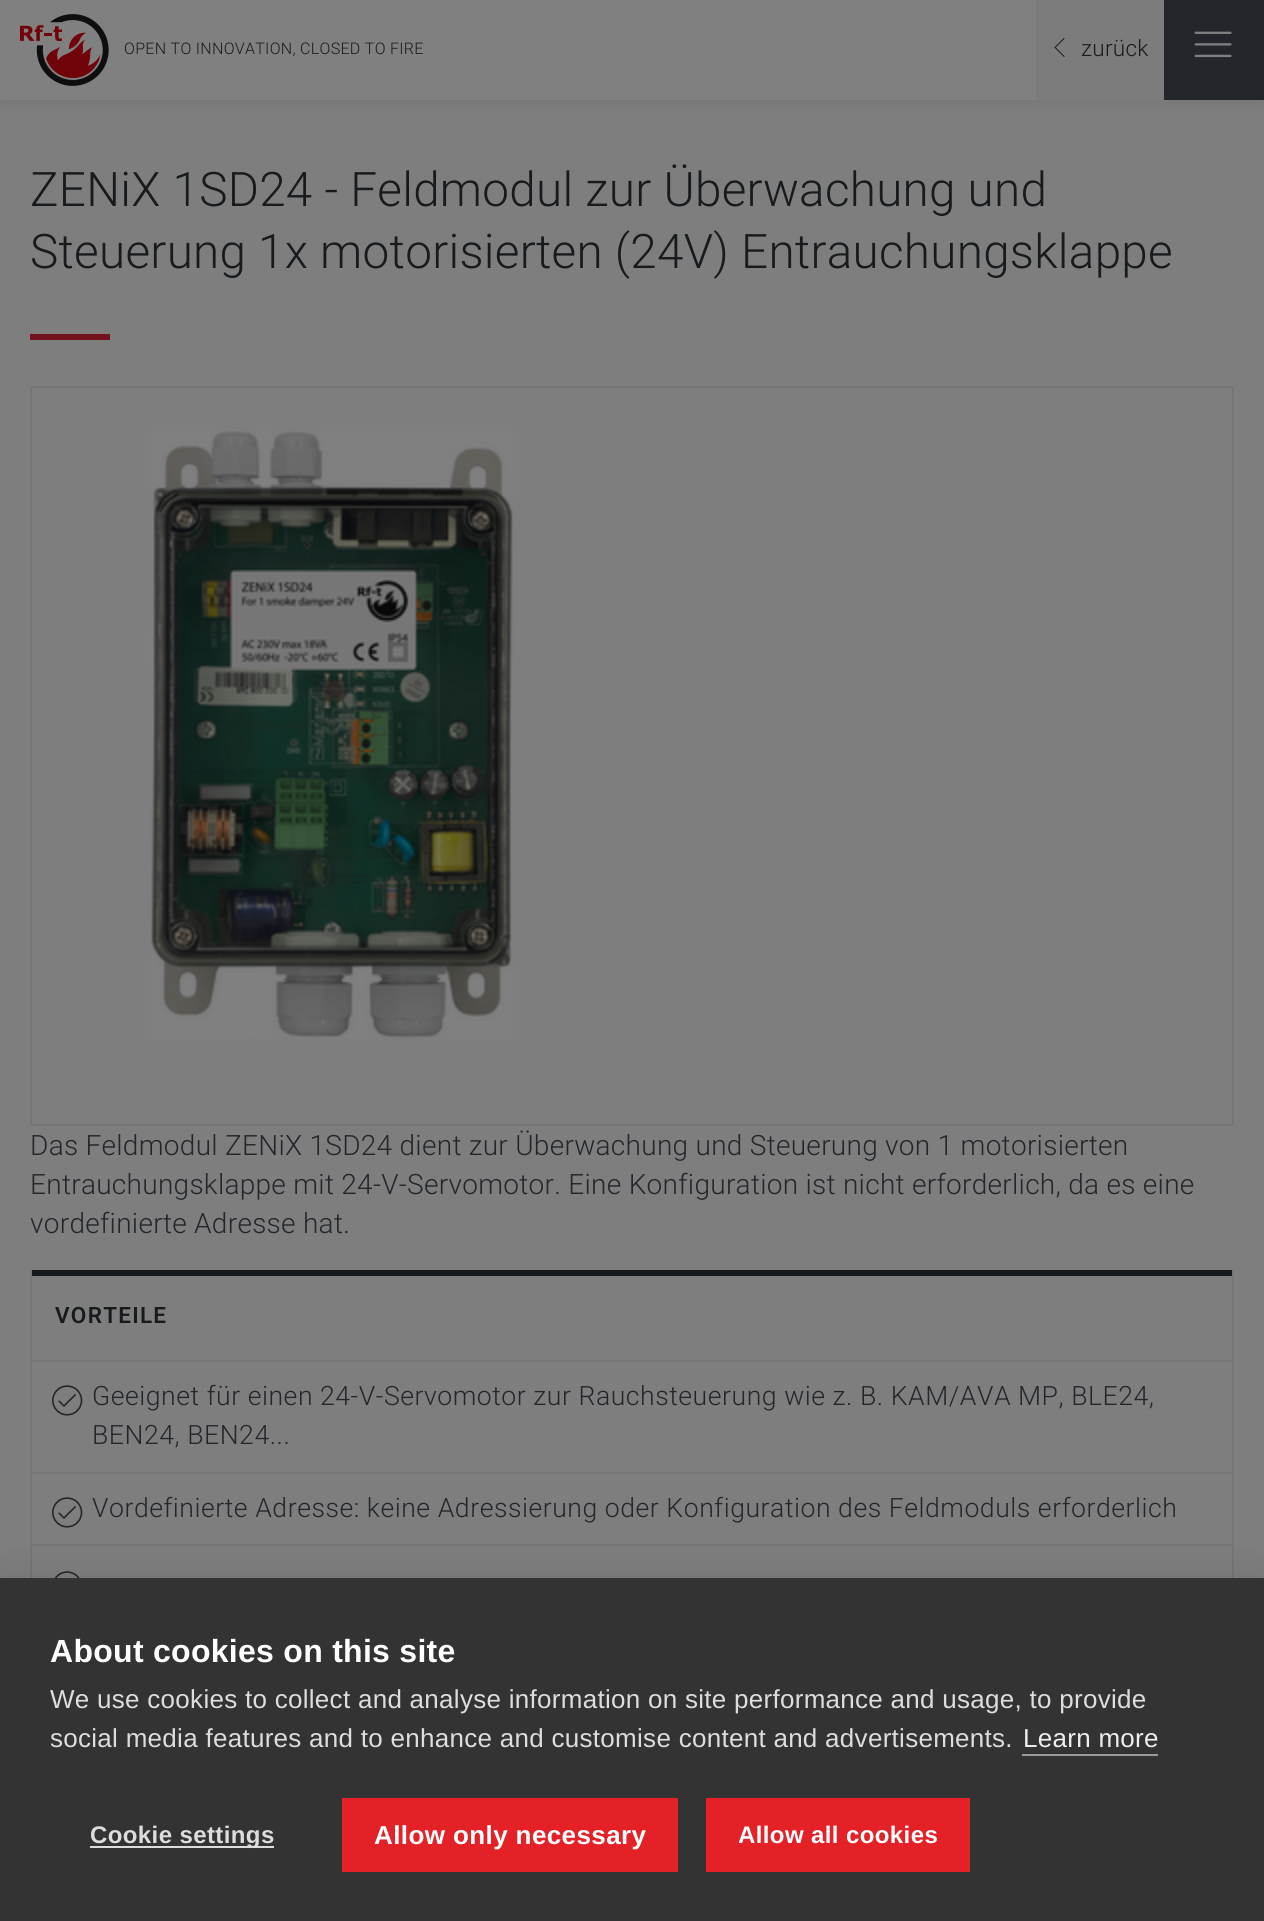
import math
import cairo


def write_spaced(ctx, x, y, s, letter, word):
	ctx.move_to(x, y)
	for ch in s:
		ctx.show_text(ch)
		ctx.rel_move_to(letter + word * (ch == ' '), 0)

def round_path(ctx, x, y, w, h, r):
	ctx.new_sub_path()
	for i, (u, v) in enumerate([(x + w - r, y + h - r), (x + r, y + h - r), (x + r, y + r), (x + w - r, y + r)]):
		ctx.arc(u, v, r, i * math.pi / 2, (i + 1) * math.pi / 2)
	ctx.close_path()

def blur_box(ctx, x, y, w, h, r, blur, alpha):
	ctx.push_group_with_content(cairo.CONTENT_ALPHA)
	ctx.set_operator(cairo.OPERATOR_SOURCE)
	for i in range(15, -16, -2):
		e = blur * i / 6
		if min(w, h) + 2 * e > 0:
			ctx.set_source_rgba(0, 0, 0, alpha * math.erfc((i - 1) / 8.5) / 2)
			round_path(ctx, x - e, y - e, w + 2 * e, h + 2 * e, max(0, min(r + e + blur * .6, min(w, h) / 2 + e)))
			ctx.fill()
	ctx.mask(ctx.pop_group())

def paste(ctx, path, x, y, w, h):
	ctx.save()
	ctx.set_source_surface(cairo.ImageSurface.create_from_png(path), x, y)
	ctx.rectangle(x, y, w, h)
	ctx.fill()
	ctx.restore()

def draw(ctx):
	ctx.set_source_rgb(0.494, 0.494, 0.494)
	ctx.paint()
	ctx.set_source_rgb(0, 0, 0)
	blur_box(ctx, 0, 0, 1264, 100, 0, 7, 0.1)
	ctx.set_source_rgb(0.502, 0.502, 0.502)
	ctx.rectangle(0, 0, 1036, 100)
	ctx.fill()
	paste(ctx, 'media/1.png', 20, 14, 89, 72)
	ctx.select_font_face('Roboto Light')
	ctx.set_font_size(16)
	ctx.set_source_rgb(0.094, 0.106, 0.118)
	write_spaced(ctx, 124, 54, 'OPEN TO INNOVATION, CLOSED TO FIRE', 0.3, 0)
	ctx.set_source_rgb(0.486, 0.486, 0.486)
	ctx.rectangle(1036, 0, 128, 100)
	ctx.fill()
	paste(ctx, 'media/2.png', 1054, 37, 11, 20)
	ctx.set_font_size(22.5)
	ctx.set_source_rgb(0.094, 0.106, 0.118)
	write_spaced(ctx, 1081, 56, 'zurück', 0.28, 0)
	ctx.set_source_rgb(0.137, 0.153, 0.173)
	ctx.rectangle(1164, 0, 100, 100)
	ctx.fill()
	paste(ctx, 'media/3.png', 1194, 31, 38, 27)
	ctx.set_font_size(47.6)
	ctx.set_source_rgb(0.094, 0.106, 0.118)
	write_spaced(ctx, 30, 206, 'ZENiX 1SD24 - Feldmodul zur Überwachung und', 0.28, 0)
	write_spaced(ctx, 30, 268, 'Steuerung 1x motorisierten (24V) Entrauchungsklappe', 0.28, 0)
	ctx.set_source_rgb(0.451, 0.067, 0.11)
	ctx.rectangle(30, 334, 80, 6)
	ctx.fill()
	ctx.rectangle(31, 387, 1202, 738)
	ctx.set_source_rgb(0.459, 0.459, 0.459)
	ctx.stroke()
	paste(ctx, 'media/4.png', 151, 431, 362, 608)
	ctx.set_font_size(28)
	ctx.set_source_rgb(0.137, 0.153, 0.173)
	for x, y, s in [
		(30, 1155, 'Das Feldmodul ZENiX 1SD24 dient zur Überwachung und Steuerung von 1 motorisierten'),
		(30, 1194, 'Entrauchungsklappe mit 24-V-Servomotor. Eine Konfiguration ist nicht erforderlich, da es eine'),
		(30, 1233, 'vordefinierte Adresse hat.'),
	]:
		write_spaced(ctx, x, y, s, 0.28, 0)
	ctx.set_source_rgb(0.459, 0.459, 0.459)
	ctx.rectangle(1232, 1270, 2, 308)
	ctx.rectangle(30, 1270, 2, 308)
	ctx.fill()
	ctx.set_source_rgb(0.094, 0.106, 0.118)
	ctx.rectangle(32, 1270, 1200, 6)
	ctx.fill()
	ctx.select_font_face('Roboto SemiBold')
	ctx.set_font_size(22.5)
	write_spaced(ctx, 55, 1323, 'VORTEILE', 1.25, 0)
	ctx.set_source_rgb(0.459, 0.459, 0.459)
	ctx.rectangle(32, 1360, 1200, 2)
	ctx.fill()
	paste(ctx, 'media/5.png', 52, 1385, 31, 31)
	ctx.select_font_face('Roboto Light')
	ctx.set_font_size(26.6)
	ctx.set_source_rgb(0.137, 0.153, 0.173)
	write_spaced(ctx, 92, 1405, 'Geeignet für einen 24-V-Servomotor zur Rauchsteuerung wie z. B. KAM/AVA MP, BLE24,', 0.53, 0)
	write_spaced(ctx, 92, 1444, 'BEN24, BEN24...', 0.53, 0)
	ctx.set_source_rgb(0.459, 0.459, 0.459)
	ctx.rectangle(32, 1472, 1200, 2)
	ctx.fill()
	paste(ctx, 'media/5.png', 52, 1497, 31, 31)
	ctx.set_source_rgb(0.137, 0.153, 0.173)
	write_spaced(ctx, 92, 1517, 'Vordefinierte Adresse: keine Adressierung oder Konfiguration des Feldmoduls erforderlich', 0.53, 0)
	ctx.set_source_rgb(0.459, 0.459, 0.459)
	ctx.rectangle(32, 1544, 1200, 2)
	ctx.fill()
	paste(ctx, 'media/6.png', 54, 1571, 26, 7)
	ctx.set_source_rgb(0, 0, 0)
	blur_box(ctx, 0, 1578, 1264, 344, 0, 20, 0.1)
	ctx.set_source_rgb(0.2, 0.2, 0.2)
	ctx.rectangle(0, 1578, 1264, 343)
	ctx.fill()
	ctx.select_font_face('Liberation Sans', cairo.FONT_SLANT_NORMAL, cairo.FONT_WEIGHT_BOLD)
	ctx.set_font_size(32)
	ctx.set_source_rgb(1, 1, 1)
	write_spaced(ctx, 50, 1662, 'About cookies on this site', 0.28, 0)
	ctx.select_font_face('Liberation Sans')
	ctx.set_font_size(26)
	ctx.set_source_rgb(0.867, 0.867, 0.867)
	write_spaced(ctx, 50, 1708, 'We use cookies to collect and analyse information on site performance and usage, to provide', 0.28, 0)
	write_spaced(ctx, 50, 1747, 'social media features and to enhance and customise content and advertisements.', 0.28, 0)
	ctx.set_source_rgb(0.933, 0.933, 0.933)
	write_spaced(ctx, 1023, 1747, 'Learn more', 0.28, 0)
	ctx.set_source_rgb(0.6, 0.6, 0.6)
	ctx.rectangle(1022, 1754, 136, 2)
	ctx.fill()
	ctx.set_source_rgb(0.867, 0.867, 0.867)
	ctx.rectangle(90, 1846, 184, 2)
	ctx.fill()
	ctx.select_font_face('Liberation Sans', cairo.FONT_SLANT_NORMAL, cairo.FONT_WEIGHT_BOLD)
	ctx.set_font_size(24)
	write_spaced(ctx, 90, 1843, 'Cookie settings', 0.4, 0)
	ctx.set_source_rgb(0.894, 0.129, 0.153)
	ctx.rectangle(342, 1798, 336, 74)
	ctx.fill()
	ctx.set_font_size(26)
	ctx.set_source_rgb(1, 1, 1)
	write_spaced(ctx, 374, 1844, 'Allow only necessary', 0.4, 0)
	ctx.set_source_rgb(0.894, 0.129, 0.153)
	ctx.rectangle(706, 1798, 264, 74)
	ctx.fill()
	ctx.set_font_size(24)
	ctx.set_source_rgb(1, 1, 1)
	write_spaced(ctx, 738, 1843, 'Allow all cookies', 0.4, 0)


surface = cairo.ImageSurface(cairo.FORMAT_RGB24, 1264, 1921)
ctx = cairo.Context(surface)
options = cairo.FontOptions()
options.set_hint_metrics(cairo.HINT_METRICS_OFF)
options.set_hint_style(cairo.HINT_STYLE_NONE)
ctx.set_font_options(options)
ctx.set_miter_limit(4)
draw(ctx)
surface.write_to_png('image.png')
